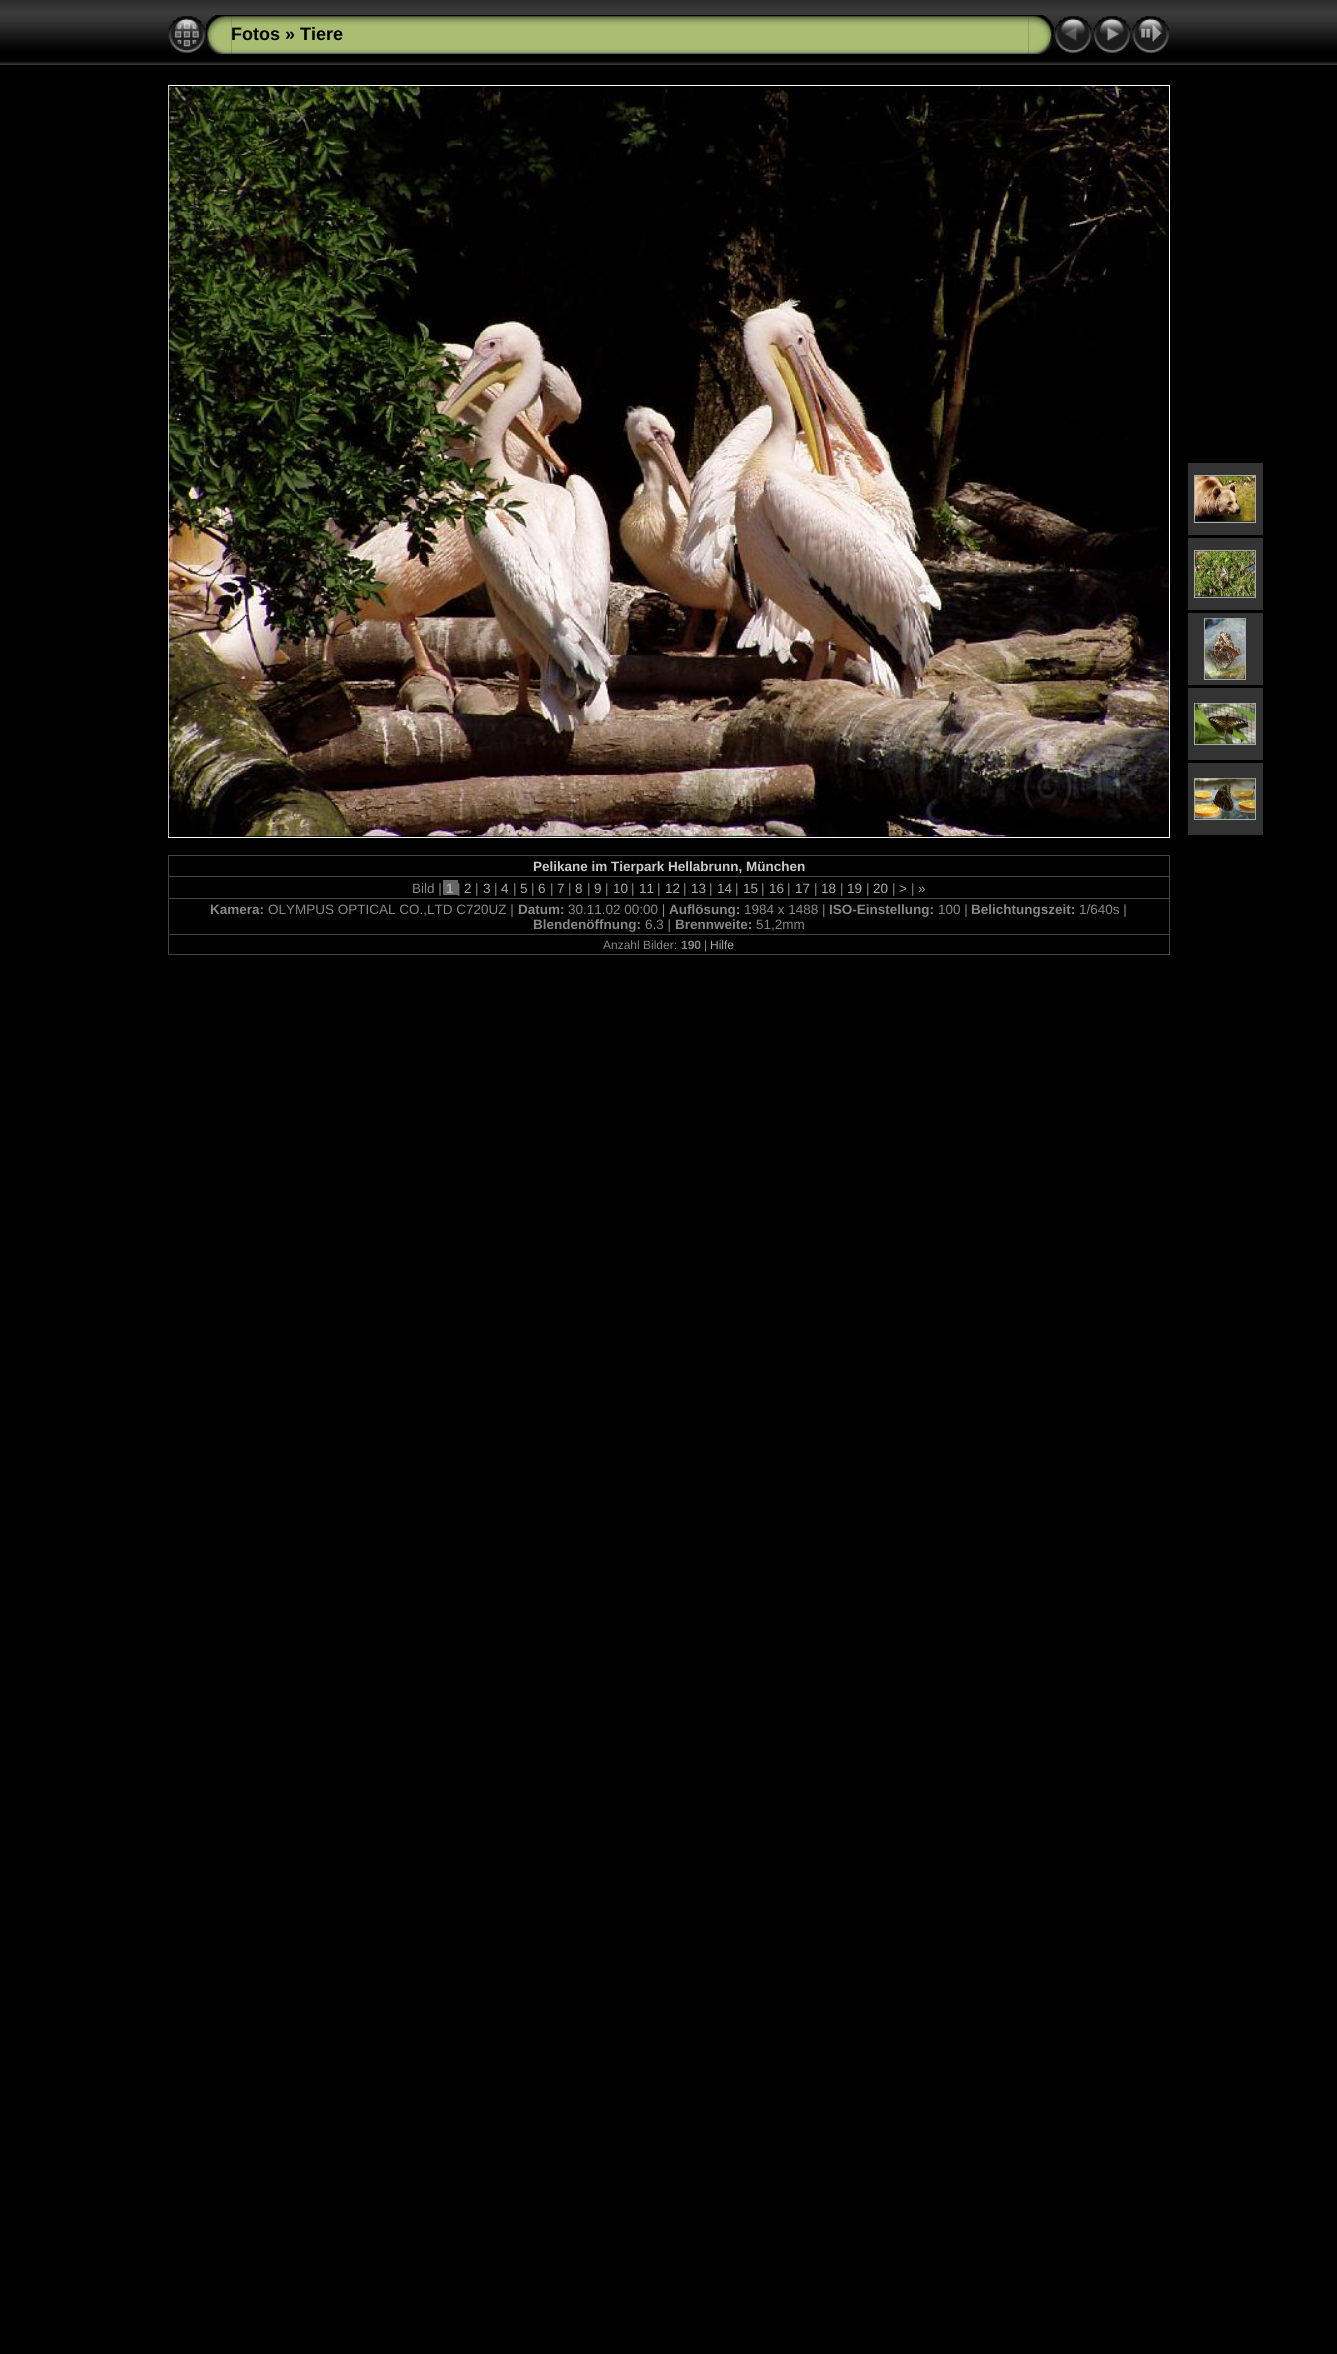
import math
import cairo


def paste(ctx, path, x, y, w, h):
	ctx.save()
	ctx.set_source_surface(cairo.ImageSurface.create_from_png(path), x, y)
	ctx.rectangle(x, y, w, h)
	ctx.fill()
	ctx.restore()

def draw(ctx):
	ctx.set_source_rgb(0, 0, 0)
	ctx.paint()
	paste(ctx, 'media/1.png', 0, 0, 1337, 65)
	paste(ctx, 'media/2.png', 168, 16, 38, 37)
	paste(ctx, 'media/4.png', 231, 15, 798, 39)
	paste(ctx, 'media/3.png', 206, 15, 26, 39)
	ctx.select_font_face('Liberation Sans', cairo.FONT_SLANT_NORMAL, cairo.FONT_WEIGHT_BOLD)
	ctx.set_font_size(18)
	ctx.set_source_rgb(0, 0, 0)
	ctx.move_to(231, 40)
	ctx.show_text('Fotos » Tiere')
	paste(ctx, 'media/5.png', 1028, 15, 26, 39)
	paste(ctx, 'media/6.png', 1055, 16, 37, 37)
	paste(ctx, 'media/7.png', 1093, 16, 38, 37)
	paste(ctx, 'media/8.png', 1132, 16, 37, 37)
	ctx.rectangle(168.5, 85.5, 1001, 752)
	ctx.set_source_rgb(1, 1, 1)
	ctx.set_line_width(1)
	ctx.stroke()
	paste(ctx, 'media/9.png', 168, 86, 1001, 751)
	ctx.set_source_rgb(0.2, 0.2, 0.2)
	ctx.rectangle(1188, 463, 75, 72)
	ctx.fill()
	ctx.rectangle(1194.5, 475.5, 61, 47)
	ctx.set_source_rgb(0.667, 0.667, 0.667)
	ctx.stroke()
	paste(ctx, 'media/10.png', 1195, 476, 60, 46)
	ctx.set_source_rgb(0.2, 0.2, 0.2)
	ctx.rectangle(1188, 538, 75, 72)
	ctx.fill()
	ctx.rectangle(1194.5, 550.5, 61, 47)
	ctx.set_source_rgb(0.667, 0.667, 0.667)
	ctx.stroke()
	paste(ctx, 'media/11.png', 1195, 551, 60, 46)
	ctx.set_source_rgb(0.2, 0.2, 0.2)
	ctx.rectangle(1188, 613, 75, 72)
	ctx.fill()
	ctx.rectangle(1204.5, 618.5, 41, 61)
	ctx.set_source_rgb(0.667, 0.667, 0.667)
	ctx.stroke()
	paste(ctx, 'media/12.png', 1205, 618, 40, 61)
	ctx.set_source_rgb(0.2, 0.2, 0.2)
	ctx.rectangle(1188, 688, 75, 72)
	ctx.fill()
	ctx.rectangle(1194.5, 703.5, 61, 41)
	ctx.set_source_rgb(0.667, 0.667, 0.667)
	ctx.stroke()
	paste(ctx, 'media/13.png', 1195, 703, 60, 41)
	ctx.set_source_rgb(0.2, 0.2, 0.2)
	ctx.rectangle(1188, 763, 75, 72)
	ctx.fill()
	ctx.rectangle(1194.5, 778.5, 61, 41)
	ctx.set_source_rgb(0.667, 0.667, 0.667)
	ctx.stroke()
	paste(ctx, 'media/14.png', 1195, 778, 60, 41)
	ctx.set_source_rgb(0.267, 0.267, 0.267)
	ctx.rectangle(168, 855, 1002, 1)
	ctx.rectangle(1169, 855, 1, 100)
	ctx.rectangle(168, 954, 1002, 1)
	ctx.rectangle(168, 855, 1, 100)
	ctx.fill()
	ctx.set_font_size(13.5)
	ctx.set_source_rgb(0.8, 0.8, 0.8)
	ctx.move_to(533, 871)
	ctx.show_text('Pelikane im Tierpark Hellabrunn, München')
	ctx.set_source_rgb(0.267, 0.267, 0.267)
	ctx.rectangle(168, 876, 1002, 1)
	ctx.fill()
	ctx.select_font_face('Liberation Sans')
	ctx.set_source_rgb(0.533, 0.533, 0.533)
	ctx.move_to(412, 893)
	ctx.show_text('Bild |')
	ctx.set_source_rgb(0.4, 0.4, 0.4)
	ctx.rectangle(443, 880, 15, 15)
	ctx.fill()
	ctx.select_font_face('Liberation Sans', cairo.FONT_SLANT_NORMAL, cairo.FONT_WEIGHT_BOLD)
	ctx.set_source_rgb(0.667, 0.667, 0.667)
	ctx.move_to(446, 893)
	ctx.show_text('1')
	ctx.select_font_face('Liberation Sans')
	ctx.set_source_rgb(0.533, 0.533, 0.533)
	ctx.move_to(457, 893)
	ctx.show_text('|')
	ctx.set_source_rgb(0.667, 0.667, 0.667)
	ctx.move_to(464, 893)
	ctx.show_text('2')
	ctx.set_source_rgb(0.533, 0.533, 0.533)
	ctx.move_to(475, 893)
	ctx.show_text('|')
	ctx.set_source_rgb(0.667, 0.667, 0.667)
	ctx.move_to(483, 893)
	ctx.show_text('3')
	ctx.set_source_rgb(0.533, 0.533, 0.533)
	ctx.move_to(494, 893)
	ctx.show_text('|')
	ctx.set_source_rgb(0.667, 0.667, 0.667)
	ctx.move_to(501, 893)
	ctx.show_text('4')
	ctx.set_source_rgb(0.533, 0.533, 0.533)
	ctx.move_to(513, 893)
	ctx.show_text('|')
	ctx.set_source_rgb(0.667, 0.667, 0.667)
	ctx.move_to(520, 893)
	ctx.show_text('5')
	ctx.set_source_rgb(0.533, 0.533, 0.533)
	ctx.move_to(531, 893)
	ctx.show_text('|')
	ctx.set_source_rgb(0.667, 0.667, 0.667)
	ctx.move_to(538, 893)
	ctx.show_text('6')
	ctx.set_source_rgb(0.533, 0.533, 0.533)
	ctx.move_to(550, 893)
	ctx.show_text('|')
	ctx.set_source_rgb(0.667, 0.667, 0.667)
	ctx.move_to(557, 893)
	ctx.show_text('7')
	ctx.set_source_rgb(0.533, 0.533, 0.533)
	ctx.move_to(568, 893)
	ctx.show_text('|')
	ctx.set_source_rgb(0.667, 0.667, 0.667)
	ctx.move_to(575, 893)
	ctx.show_text('8')
	ctx.set_source_rgb(0.533, 0.533, 0.533)
	ctx.move_to(587, 893)
	ctx.show_text('|')
	ctx.set_source_rgb(0.667, 0.667, 0.667)
	ctx.move_to(594, 893)
	ctx.show_text('9')
	ctx.set_source_rgb(0.533, 0.533, 0.533)
	ctx.move_to(605, 893)
	ctx.show_text('|')
	ctx.set_source_rgb(0.667, 0.667, 0.667)
	ctx.move_to(613, 893)
	ctx.show_text('10')
	ctx.set_source_rgb(0.533, 0.533, 0.533)
	ctx.move_to(631, 893)
	ctx.show_text('|')
	ctx.set_source_rgb(0.667, 0.667, 0.667)
	ctx.move_to(639, 893)
	ctx.show_text('11')
	ctx.set_source_rgb(0.533, 0.533, 0.533)
	ctx.move_to(657, 893)
	ctx.show_text('|')
	ctx.set_source_rgb(0.667, 0.667, 0.667)
	ctx.move_to(665, 893)
	ctx.show_text('12')
	ctx.set_source_rgb(0.533, 0.533, 0.533)
	ctx.move_to(683, 893)
	ctx.show_text('|')
	ctx.set_source_rgb(0.667, 0.667, 0.667)
	ctx.move_to(691, 893)
	ctx.show_text('13')
	ctx.set_source_rgb(0.533, 0.533, 0.533)
	ctx.move_to(709, 893)
	ctx.show_text('|')
	ctx.set_source_rgb(0.667, 0.667, 0.667)
	ctx.move_to(717, 893)
	ctx.show_text('14')
	ctx.set_source_rgb(0.533, 0.533, 0.533)
	ctx.move_to(735, 893)
	ctx.show_text('|')
	ctx.set_source_rgb(0.667, 0.667, 0.667)
	ctx.move_to(743, 893)
	ctx.show_text('15')
	ctx.set_source_rgb(0.533, 0.533, 0.533)
	ctx.move_to(761, 893)
	ctx.show_text('|')
	ctx.set_source_rgb(0.667, 0.667, 0.667)
	ctx.move_to(769, 893)
	ctx.show_text('16')
	ctx.set_source_rgb(0.533, 0.533, 0.533)
	ctx.move_to(787, 893)
	ctx.show_text('|')
	ctx.set_source_rgb(0.667, 0.667, 0.667)
	ctx.move_to(795, 893)
	ctx.show_text('17')
	ctx.set_source_rgb(0.533, 0.533, 0.533)
	ctx.move_to(814, 893)
	ctx.show_text('|')
	ctx.set_source_rgb(0.667, 0.667, 0.667)
	ctx.move_to(821, 893)
	ctx.show_text('18')
	ctx.set_source_rgb(0.533, 0.533, 0.533)
	ctx.move_to(840, 893)
	ctx.show_text('|')
	ctx.set_source_rgb(0.667, 0.667, 0.667)
	ctx.move_to(847, 893)
	ctx.show_text('19')
	ctx.set_source_rgb(0.533, 0.533, 0.533)
	ctx.move_to(866, 893)
	ctx.show_text('|')
	ctx.set_source_rgb(0.667, 0.667, 0.667)
	ctx.move_to(873, 893)
	ctx.show_text('20')
	ctx.set_source_rgb(0.533, 0.533, 0.533)
	ctx.move_to(892, 893)
	ctx.show_text('|')
	ctx.set_source_rgb(0.667, 0.667, 0.667)
	ctx.move_to(899, 893)
	ctx.show_text('>')
	ctx.set_source_rgb(0.533, 0.533, 0.533)
	ctx.move_to(911, 893)
	ctx.show_text('|')
	ctx.set_source_rgb(0.667, 0.667, 0.667)
	ctx.move_to(918, 893)
	ctx.show_text('»')
	ctx.set_source_rgb(0.267, 0.267, 0.267)
	ctx.rectangle(168, 898, 1002, 1)
	ctx.fill()
	ctx.select_font_face('Liberation Sans', cairo.FONT_SLANT_NORMAL, cairo.FONT_WEIGHT_BOLD)
	ctx.set_source_rgb(0.533, 0.533, 0.533)
	ctx.move_to(210, 914)
	ctx.show_text('Kamera:')
	ctx.select_font_face('Liberation Sans')
	ctx.move_to(268, 914)
	ctx.show_text('OLYMPUS OPTICAL CO.,LTD C720UZ |')
	ctx.select_font_face('Liberation Sans', cairo.FONT_SLANT_NORMAL, cairo.FONT_WEIGHT_BOLD)
	ctx.move_to(518, 914)
	ctx.show_text('Datum:')
	ctx.select_font_face('Liberation Sans')
	ctx.move_to(568, 914)
	ctx.show_text('30.11.02 00:00 |')
	ctx.select_font_face('Liberation Sans', cairo.FONT_SLANT_NORMAL, cairo.FONT_WEIGHT_BOLD)
	ctx.move_to(669, 914)
	ctx.show_text('Auflösung:')
	ctx.select_font_face('Liberation Sans')
	ctx.move_to(744, 914)
	ctx.show_text('1984 x 1488 |')
	ctx.select_font_face('Liberation Sans', cairo.FONT_SLANT_NORMAL, cairo.FONT_WEIGHT_BOLD)
	ctx.move_to(829, 914)
	ctx.show_text('ISO-Einstellung:')
	ctx.select_font_face('Liberation Sans')
	ctx.move_to(938, 914)
	ctx.show_text('100 |')
	ctx.select_font_face('Liberation Sans', cairo.FONT_SLANT_NORMAL, cairo.FONT_WEIGHT_BOLD)
	ctx.move_to(971, 914)
	ctx.show_text('Belichtungszeit:')
	ctx.select_font_face('Liberation Sans')
	ctx.move_to(1079, 914)
	ctx.show_text('1/640s |')
	ctx.select_font_face('Liberation Sans', cairo.FONT_SLANT_NORMAL, cairo.FONT_WEIGHT_BOLD)
	ctx.move_to(533, 929)
	ctx.show_text('Blendenöffnung:')
	ctx.select_font_face('Liberation Sans')
	ctx.move_to(645, 929)
	ctx.show_text('6.3 |')
	ctx.select_font_face('Liberation Sans', cairo.FONT_SLANT_NORMAL, cairo.FONT_WEIGHT_BOLD)
	ctx.move_to(675, 929)
	ctx.show_text('Brennweite:')
	ctx.select_font_face('Liberation Sans')
	ctx.move_to(756, 929)
	ctx.show_text('51,2mm')
	ctx.set_source_rgb(0.267, 0.267, 0.267)
	ctx.rectangle(168, 934, 1002, 1)
	ctx.fill()
	ctx.set_font_size(12)
	ctx.set_source_rgb(0.533, 0.533, 0.533)
	ctx.move_to(603, 949)
	ctx.show_text('Anzahl Bilder:')
	ctx.select_font_face('Liberation Sans', cairo.FONT_SLANT_NORMAL, cairo.FONT_WEIGHT_BOLD)
	ctx.move_to(681, 949)
	ctx.show_text('190')
	ctx.select_font_face('Liberation Sans')
	ctx.move_to(704, 949)
	ctx.show_text('|')
	ctx.set_source_rgb(0.667, 0.667, 0.667)
	ctx.move_to(710, 949)
	ctx.show_text('Hilfe')


surface = cairo.ImageSurface(cairo.FORMAT_RGB24, 1337, 2354)
ctx = cairo.Context(surface)
options = cairo.FontOptions()
options.set_hint_metrics(cairo.HINT_METRICS_OFF)
options.set_hint_style(cairo.HINT_STYLE_NONE)
ctx.set_font_options(options)
ctx.set_miter_limit(4)
draw(ctx)
surface.write_to_png('image.png')
